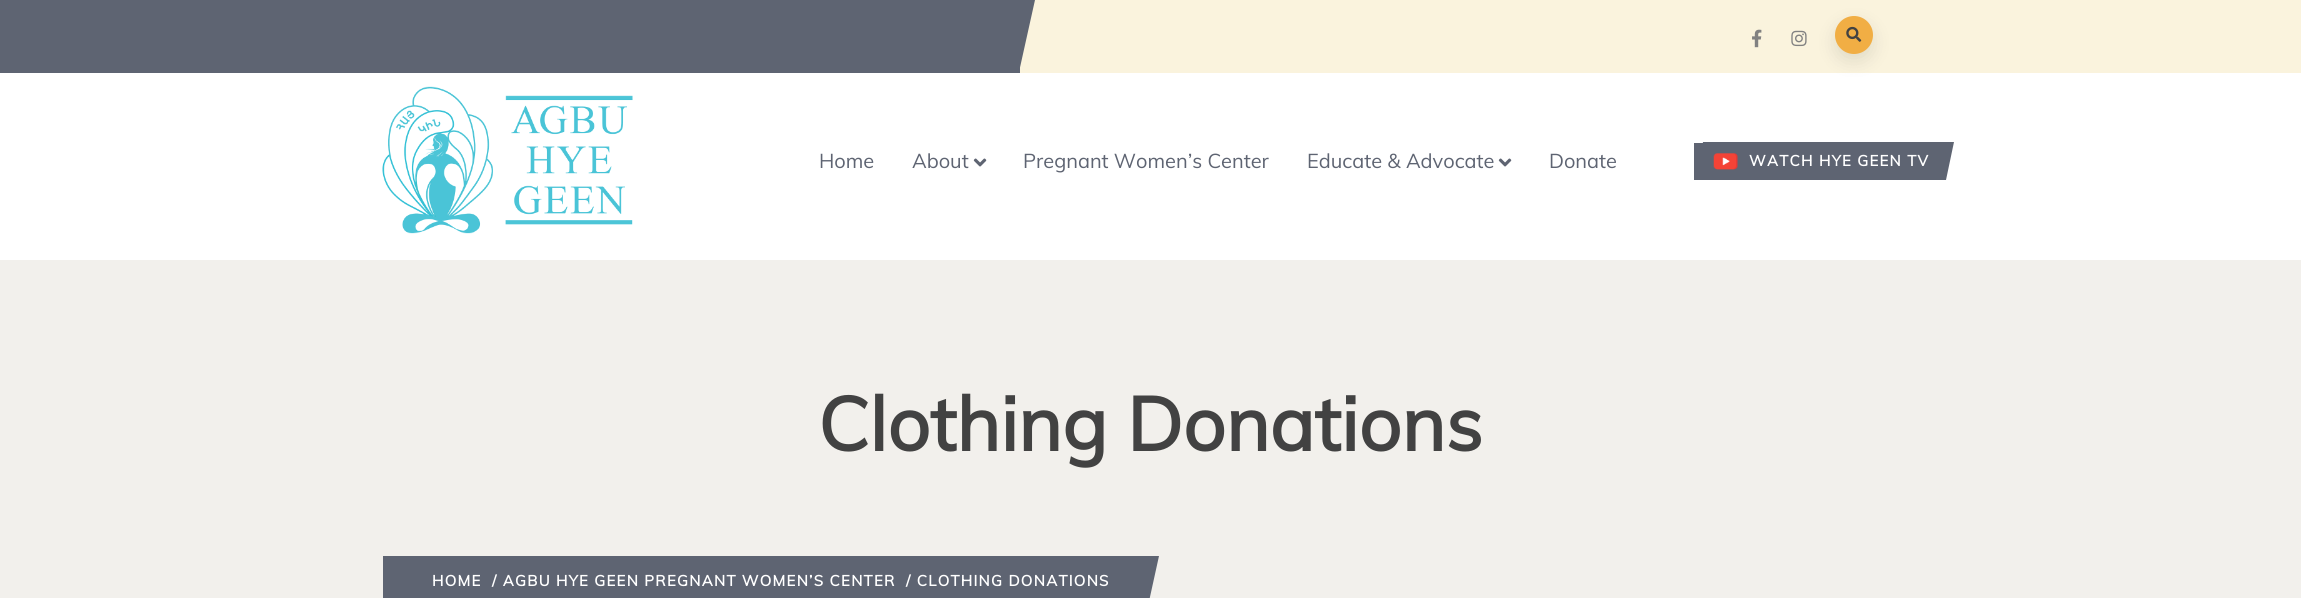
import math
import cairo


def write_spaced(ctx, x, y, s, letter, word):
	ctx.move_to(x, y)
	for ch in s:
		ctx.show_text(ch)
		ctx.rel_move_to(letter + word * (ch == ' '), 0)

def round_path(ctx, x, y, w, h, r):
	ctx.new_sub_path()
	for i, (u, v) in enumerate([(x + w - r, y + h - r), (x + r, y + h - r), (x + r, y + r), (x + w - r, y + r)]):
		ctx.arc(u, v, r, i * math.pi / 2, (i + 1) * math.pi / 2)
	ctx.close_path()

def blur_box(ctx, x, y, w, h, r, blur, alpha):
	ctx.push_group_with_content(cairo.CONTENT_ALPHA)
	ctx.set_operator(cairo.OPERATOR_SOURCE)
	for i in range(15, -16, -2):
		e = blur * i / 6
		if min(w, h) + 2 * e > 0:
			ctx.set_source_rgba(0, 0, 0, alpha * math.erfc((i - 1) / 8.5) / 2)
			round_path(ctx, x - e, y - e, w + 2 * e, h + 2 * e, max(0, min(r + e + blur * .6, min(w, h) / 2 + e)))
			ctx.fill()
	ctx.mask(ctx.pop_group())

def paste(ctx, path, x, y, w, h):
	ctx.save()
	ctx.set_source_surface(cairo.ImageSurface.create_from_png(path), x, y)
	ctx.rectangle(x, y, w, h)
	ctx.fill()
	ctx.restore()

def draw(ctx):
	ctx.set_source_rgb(1, 1, 1)
	ctx.paint()
	ctx.set_source_rgb(0.98, 0.953, 0.867)
	ctx.rectangle(1020, 0, 1281, 73)
	ctx.fill()
	ctx.set_source_rgb(0.369, 0.392, 0.447)
	ctx.rectangle(364, 0, 656, 73)
	ctx.fill()
	ctx.new_path()
	ctx.move_to(379, 0)
	ctx.line_to(1035, 0)
	ctx.line_to(1019, 72)
	ctx.line_to(363, 72)
	ctx.close_path()
	ctx.fill()
	ctx.rectangle(0, 0, 364, 73)
	ctx.fill()
	paste(ctx, 'media/1.png', 1752, 29, 10, 19)
	paste(ctx, 'media/2.png', 1791, 30, 16, 17)
	ctx.set_source_rgb(0, 0, 0)
	blur_box(ctx, 1835, 24, 38, 37, 18.5, 9, 0.1)
	ctx.set_source_rgb(0.945, 0.682, 0.267)
	ctx.arc(1854, 35, 19, 0, 2 * math.pi)
	ctx.fill()
	paste(ctx, 'media/3.png', 1846, 26, 16, 16)
	paste(ctx, 'media/4.png', 382, 86, 251, 148)
	ctx.select_font_face('Muli')
	ctx.set_font_size(20)
	ctx.set_source_rgb(0.369, 0.392, 0.447)
	ctx.move_to(819, 168)
	ctx.show_text('Home')
	ctx.move_to(912, 168)
	ctx.show_text('About')
	paste(ctx, 'media/5.png', 973, 158, 14, 9)
	ctx.move_to(1023, 168)
	ctx.show_text('Pregnant Women’s Center')
	ctx.move_to(1307, 168)
	ctx.show_text('Educate & Advocate')
	paste(ctx, 'media/5.png', 1498, 158, 14, 9)
	ctx.move_to(1549, 168)
	ctx.show_text('Donate')
	ctx.rectangle(1694, 143, 9, 37)
	ctx.fill()
	ctx.new_path()
	ctx.move_to(1703, 142)
	ctx.line_to(1954, 142)
	ctx.line_to(1946, 180)
	ctx.line_to(1696, 180)
	ctx.close_path()
	ctx.fill()
	paste(ctx, 'media/6.png', 1713, 153, 25, 17)
	ctx.select_font_face('Muli', cairo.FONT_SLANT_NORMAL, cairo.FONT_WEIGHT_BOLD)
	ctx.set_font_size(15)
	ctx.set_source_rgb(1, 1, 1)
	write_spaced(ctx, 1749, 166, 'WATCH HYE GEEN TV', 1.25, 0)
	ctx.set_source_rgb(0.949, 0.941, 0.925)
	ctx.rectangle(0, 260, 2301, 338)
	ctx.fill()
	ctx.set_font_size(75)
	ctx.set_source_rgb(0.259, 0.259, 0.259)
	ctx.move_to(818, 451)
	ctx.show_text('Clothing Donations')
	ctx.set_source_rgb(0.369, 0.392, 0.447)
	ctx.rectangle(383, 556, 11, 42)
	ctx.fill()
	ctx.new_path()
	ctx.move_to(394, 556)
	ctx.line_to(1159, 556)
	ctx.line_to(1148, 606)
	ctx.line_to(383, 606)
	ctx.close_path()
	ctx.fill()
	ctx.set_font_size(15)
	ctx.set_source_rgb(1, 1, 1)
	for x, y, s in [
		(432, 586, 'HOME'),
		(492, 586, '/ AGBU HYE GEEN PREGNANT WOMEN’S CENTER'),
		(906, 586, '/ CLOTHING DONATIONS'),
	]:
		write_spaced(ctx, x, y, s, 1.25, 0)


surface = cairo.ImageSurface(cairo.FORMAT_RGB24, 2301, 598)
ctx = cairo.Context(surface)
options = cairo.FontOptions()
options.set_hint_metrics(cairo.HINT_METRICS_OFF)
options.set_hint_style(cairo.HINT_STYLE_NONE)
ctx.set_font_options(options)
ctx.set_miter_limit(4)
draw(ctx)
surface.write_to_png('image.png')
